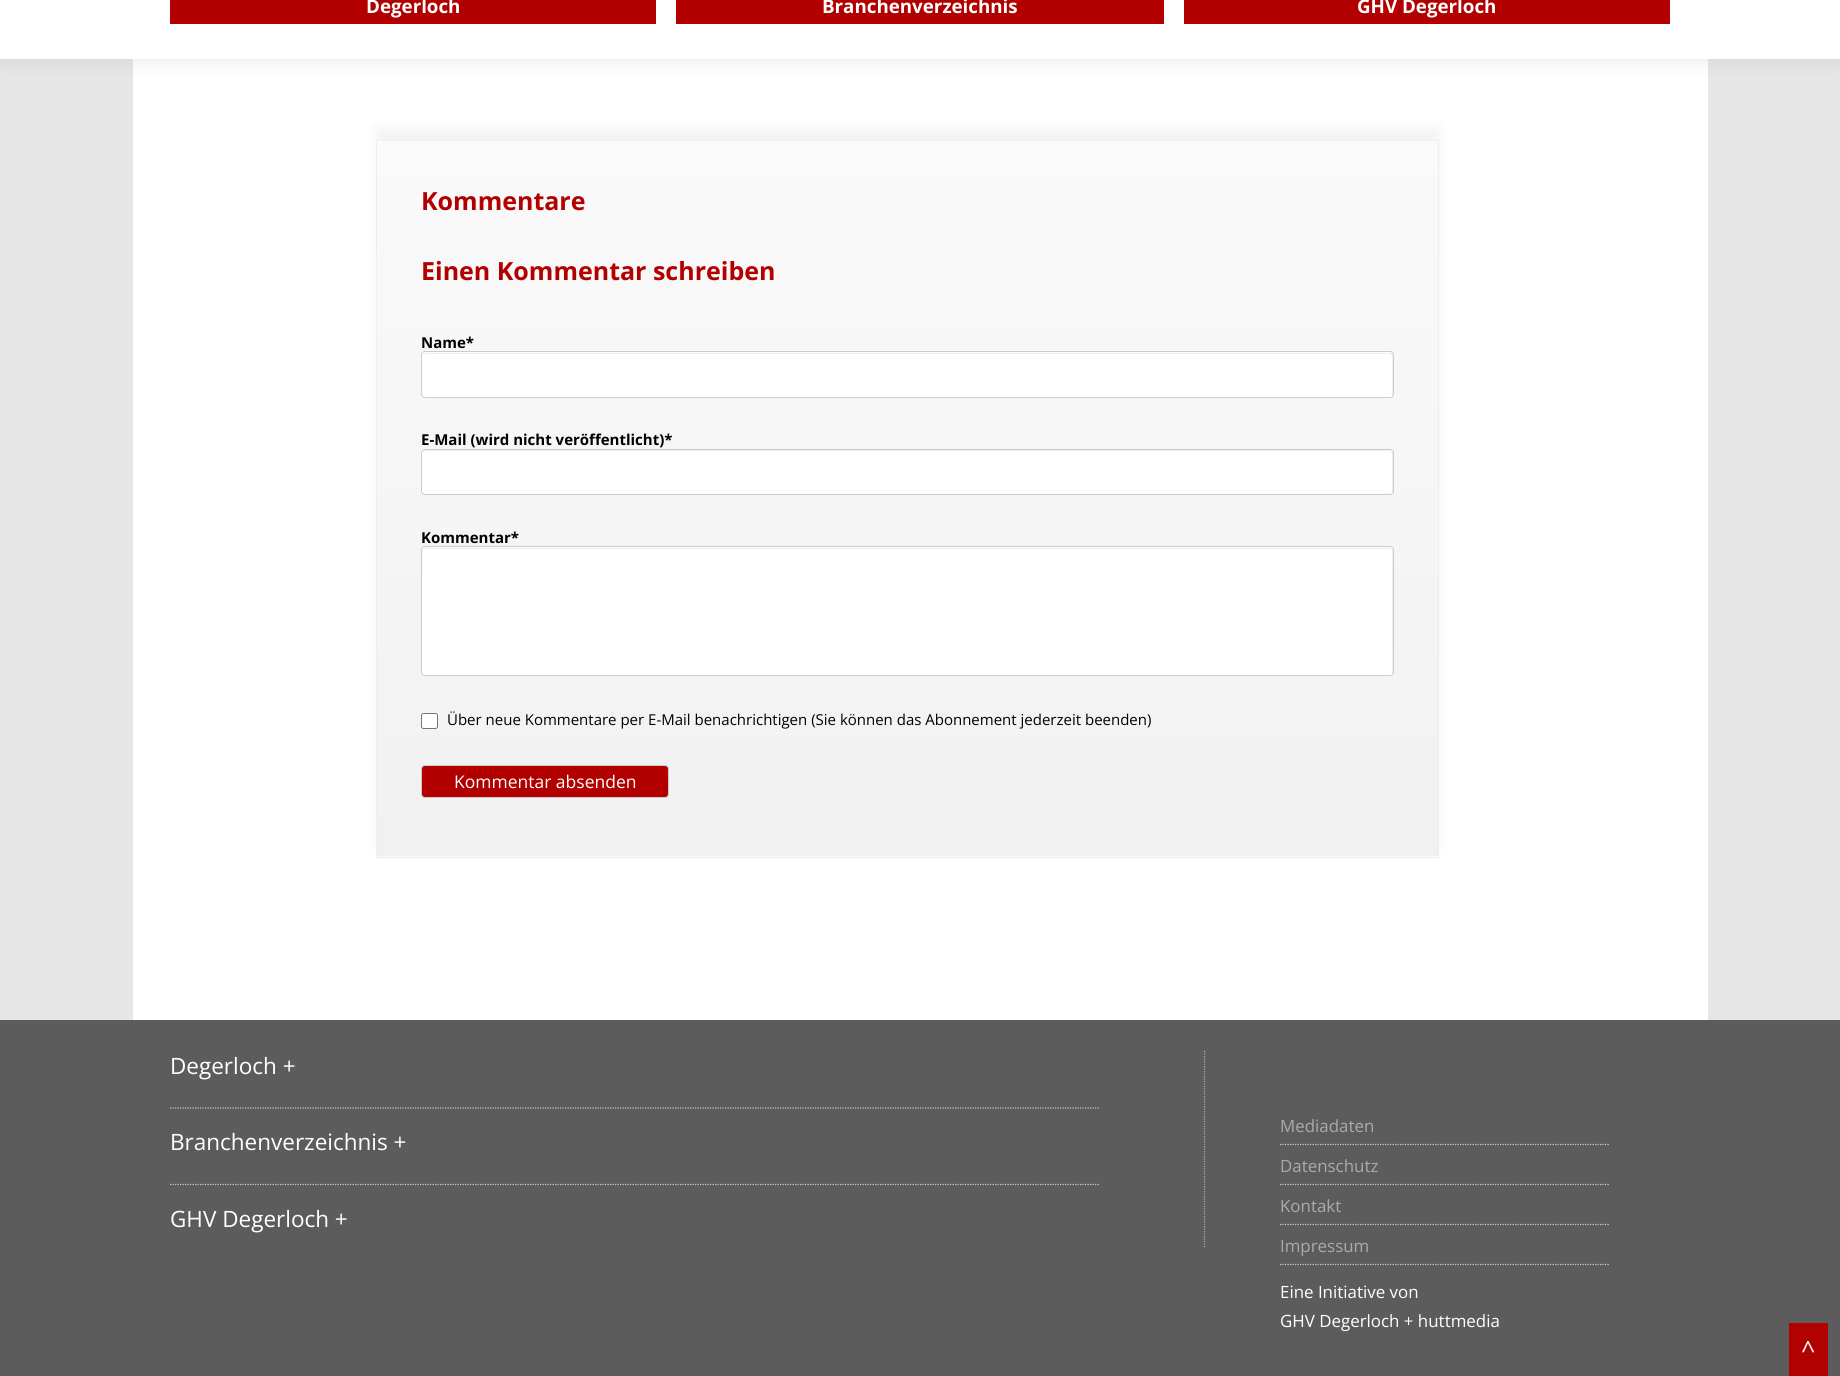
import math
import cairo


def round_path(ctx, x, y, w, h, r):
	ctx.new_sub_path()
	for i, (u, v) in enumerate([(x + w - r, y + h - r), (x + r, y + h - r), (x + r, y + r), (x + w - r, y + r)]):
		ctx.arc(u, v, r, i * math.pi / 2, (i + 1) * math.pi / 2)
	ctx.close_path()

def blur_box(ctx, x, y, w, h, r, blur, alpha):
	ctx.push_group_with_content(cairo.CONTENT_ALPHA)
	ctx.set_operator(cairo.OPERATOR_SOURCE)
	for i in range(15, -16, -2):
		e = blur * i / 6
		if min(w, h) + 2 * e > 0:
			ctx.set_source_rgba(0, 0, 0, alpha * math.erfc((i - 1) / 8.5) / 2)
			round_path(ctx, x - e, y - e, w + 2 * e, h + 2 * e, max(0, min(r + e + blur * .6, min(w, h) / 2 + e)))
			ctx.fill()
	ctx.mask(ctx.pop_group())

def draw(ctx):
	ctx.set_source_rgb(0.902, 0.902, 0.902)
	ctx.paint()
	ctx.set_source_rgb(1, 1, 1)
	ctx.rectangle(133, 59, 1575, 961)
	ctx.fill()
	ctx.set_source_rgb(0, 0, 0)
	blur_box(ctx, 0, -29, 1840, 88, 0, 9.5, 0.1)
	ctx.set_source_rgb(1, 1, 1)
	ctx.rectangle(0, 0, 1840, 59)
	ctx.fill()
	ctx.set_source_rgb(0.698, 0, 0)
	ctx.rectangle(170, 0, 486, 24)
	ctx.fill()
	ctx.select_font_face('Open Sans', cairo.FONT_SLANT_NORMAL, cairo.FONT_WEIGHT_BOLD)
	ctx.set_font_size(18.75)
	ctx.set_source_rgb(1, 1, 1)
	ctx.move_to(366, 13)
	ctx.show_text('Degerloch')
	ctx.set_source_rgb(0.698, 0, 0)
	ctx.rectangle(676, 0, 488, 24)
	ctx.fill()
	ctx.set_source_rgb(1, 1, 1)
	ctx.move_to(822, 13)
	ctx.show_text('Branchenverzeichnis')
	ctx.set_source_rgb(0.698, 0, 0)
	ctx.rectangle(1184, 0, 486, 24)
	ctx.fill()
	ctx.set_source_rgb(1, 1, 1)
	ctx.move_to(1357, 13)
	ctx.show_text('GHV Degerloch')
	ctx.set_source_rgb(0, 0, 0)
	blur_box(ctx, 376, 128, 1063, 717, 0, 6, 0.05)
	gradient = cairo.LinearGradient(908, 141, 908, 856)
	gradient.add_color_stop_rgba(0, 0.98, 0.98, 0.98, 1)
	gradient.add_color_stop_rgba(1, 0.945, 0.945, 0.945, 1)
	ctx.set_source(gradient)
	ctx.rectangle(377, 141, 1061, 715)
	ctx.fill()
	gradient = cairo.LinearGradient(908, 856, 908, 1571)
	gradient.add_color_stop_rgba(0, 0.976, 0.976, 0.976, 1)
	gradient.add_color_stop_rgba(1, 0.941, 0.941, 0.941, 1)
	ctx.set_source(gradient)
	ctx.rectangle(376, 856, 1063, 1)
	ctx.fill()
	ctx.rectangle(376.5, 140.5, 1062, 717)
	ctx.set_source_rgb(0.933, 0.933, 0.933)
	ctx.set_line_width(1)
	ctx.stroke()
	ctx.set_font_size(25)
	ctx.set_source_rgb(0.698, 0, 0)
	ctx.move_to(421, 210)
	ctx.show_text('Kommentare')
	ctx.move_to(421, 280)
	ctx.show_text('Einen Kommentar schreiben')
	ctx.set_font_size(15)
	ctx.set_source_rgb(0, 0, 0)
	ctx.move_to(421, 348)
	ctx.show_text('Name*')
	ctx.set_source_rgb(1, 1, 1)
	round_path(ctx, 421, 351, 973, 47, 4)
	ctx.fill()
	ctx.set_source_rgb(0.933, 0.933, 0.933)
	ctx.new_path()
	ctx.move_to(425, 354)
	ctx.line_to(1390, 354)
	ctx.curve_to(1391, 354, 1392, 355, 1392, 356)
	ctx.line_to(1392, 396)
	ctx.curve_to(1393, 395, 1393, 394, 1393, 394)
	ctx.line_to(1393, 356)
	ctx.curve_to(1393, 354, 1392, 353, 1390, 353)
	ctx.line_to(426, 353)
	ctx.curve_to(424, 353, 424, 354, 423, 355)
	ctx.close_path()
	ctx.fill()
	round_path(ctx, 421.5, 351.5, 972, 46, 3.5)
	ctx.set_source_rgb(0.8, 0.8, 0.8)
	ctx.stroke()
	ctx.set_source_rgb(0, 0, 0)
	ctx.move_to(421, 445)
	ctx.show_text('E-Mail (wird nicht veröffentlicht)*')
	ctx.set_source_rgb(1, 1, 1)
	round_path(ctx, 421, 449, 973, 46, 4)
	ctx.fill()
	ctx.set_source_rgb(0.933, 0.933, 0.933)
	ctx.new_path()
	ctx.move_to(425, 451)
	ctx.line_to(1390, 451)
	ctx.curve_to(1391, 451, 1392, 452, 1392, 454)
	ctx.line_to(1392, 494)
	ctx.curve_to(1392, 493, 1393, 492, 1393, 492)
	ctx.line_to(1393, 452)
	ctx.curve_to(1393, 451, 1392, 450, 1390, 450)
	ctx.line_to(426, 450)
	ctx.curve_to(424, 450, 423, 451, 423, 452)
	ctx.close_path()
	ctx.fill()
	round_path(ctx, 421.5, 449.5, 972, 45, 3.5)
	ctx.set_source_rgb(0.8, 0.8, 0.8)
	ctx.stroke()
	ctx.set_source_rgb(0, 0, 0)
	ctx.move_to(421, 543)
	ctx.show_text('Kommentar*')
	ctx.set_source_rgb(1, 1, 1)
	round_path(ctx, 421, 546, 973, 130, 4)
	ctx.fill()
	ctx.set_source_rgb(0.933, 0.933, 0.933)
	ctx.new_path()
	ctx.move_to(425, 549)
	ctx.line_to(1390, 549)
	ctx.curve_to(1391, 549, 1392, 550, 1392, 551)
	ctx.line_to(1392, 675)
	ctx.curve_to(1393, 674, 1393, 673, 1393, 672)
	ctx.line_to(1393, 550)
	ctx.curve_to(1393, 549, 1392, 548, 1390, 548)
	ctx.line_to(426, 548)
	ctx.curve_to(424, 548, 424, 549, 423, 550)
	ctx.close_path()
	ctx.fill()
	round_path(ctx, 421.5, 546.5, 972, 129, 3.5)
	ctx.set_source_rgb(0.8, 0.8, 0.8)
	ctx.stroke()
	ctx.set_source_rgb(1, 1, 1)
	round_path(ctx, 421.5, 713.5, 16, 15, 2)
	ctx.fill_preserve()
	ctx.set_source_rgb(0.463, 0.463, 0.463)
	ctx.stroke()
	ctx.select_font_face('Open Sans')
	ctx.set_source_rgb(0, 0, 0)
	ctx.move_to(447, 725)
	ctx.show_text('Über neue Kommentare per E-Mail benachrichtigen (Sie können das Abonnement jederzeit beenden)')
	ctx.set_source_rgb(0.698, 0, 0)
	round_path(ctx, 421.5, 765.5, 247, 32, 3.5)
	ctx.fill_preserve()
	ctx.set_source_rgb(0.8, 0.8, 0.8)
	ctx.stroke()
	ctx.set_font_size(17.5)
	ctx.set_source_rgb(1, 1, 1)
	ctx.move_to(454, 788)
	ctx.show_text('Kommentar absenden')
	ctx.set_source_rgb(0.361, 0.361, 0.361)
	ctx.rectangle(0, 1020, 1840, 356)
	ctx.fill()
	ctx.set_source_rgb(0.698, 0.004, 0.004)
	ctx.rectangle(1789, 1323, 39, 53)
	ctx.fill()
	ctx.set_font_size(25)
	ctx.set_source_rgb(1, 1, 1)
	ctx.move_to(1801, 1359)
	ctx.show_text('^')
	ctx.new_path()
	ctx.move_to(1204.5, 1051)
	ctx.line_to(1204.5, 1247.5)
	ctx.set_source_rgb(0.682, 0.682, 0.682)
	ctx.set_line_width(1.2)
	ctx.set_dash([1.25, 1.25])
	ctx.stroke()
	ctx.set_font_size(22.5)
	ctx.set_source_rgb(1, 1, 1)
	ctx.move_to(170, 1074)
	ctx.show_text('Degerloch +')
	ctx.new_path()
	ctx.move_to(170, 1108)
	ctx.line_to(1099, 1108)
	ctx.set_source_rgb(0.784, 0.784, 0.784)
	ctx.stroke()
	ctx.set_source_rgb(1, 1, 1)
	ctx.move_to(170, 1150)
	ctx.show_text('Branchenverzeichnis +')
	ctx.new_path()
	ctx.move_to(170, 1184.5)
	ctx.line_to(1099, 1184.5)
	ctx.set_source_rgb(0.784, 0.784, 0.784)
	ctx.stroke()
	ctx.set_source_rgb(1, 1, 1)
	ctx.move_to(170, 1227)
	ctx.show_text('GHV Degerloch +')
	ctx.new_path()
	ctx.move_to(1280, 1144.5)
	ctx.line_to(1610, 1144.5)
	ctx.set_source_rgb(0.784, 0.784, 0.784)
	ctx.stroke()
	ctx.set_font_size(16.9)
	ctx.set_source_rgb(0.667, 0.667, 0.667)
	ctx.move_to(1280, 1132)
	ctx.show_text('Mediadaten')
	ctx.new_path()
	ctx.move_to(1280, 1184.5)
	ctx.line_to(1610, 1184.5)
	ctx.set_source_rgb(0.784, 0.784, 0.784)
	ctx.stroke()
	ctx.set_source_rgb(0.667, 0.667, 0.667)
	ctx.move_to(1280, 1172)
	ctx.show_text('Datenschutz')
	ctx.new_path()
	ctx.move_to(1280, 1224.5)
	ctx.line_to(1610, 1224.5)
	ctx.set_source_rgb(0.784, 0.784, 0.784)
	ctx.stroke()
	ctx.set_source_rgb(0.667, 0.667, 0.667)
	ctx.move_to(1280, 1212)
	ctx.show_text('Kontakt')
	ctx.new_path()
	ctx.move_to(1280, 1264.5)
	ctx.line_to(1610, 1264.5)
	ctx.set_source_rgb(0.784, 0.784, 0.784)
	ctx.stroke()
	ctx.set_source_rgb(0.667, 0.667, 0.667)
	ctx.move_to(1280, 1252)
	ctx.show_text('Impressum')
	ctx.set_source_rgb(1, 1, 1)
	ctx.move_to(1280, 1298)
	ctx.show_text('Eine Initiative von')
	ctx.move_to(1280, 1327)
	ctx.show_text('GHV Degerloch + huttmedia')


surface = cairo.ImageSurface(cairo.FORMAT_RGB24, 1840, 1376)
ctx = cairo.Context(surface)
options = cairo.FontOptions()
options.set_hint_metrics(cairo.HINT_METRICS_OFF)
options.set_hint_style(cairo.HINT_STYLE_NONE)
ctx.set_font_options(options)
ctx.set_miter_limit(4)
draw(ctx)
surface.write_to_png('image.png')
